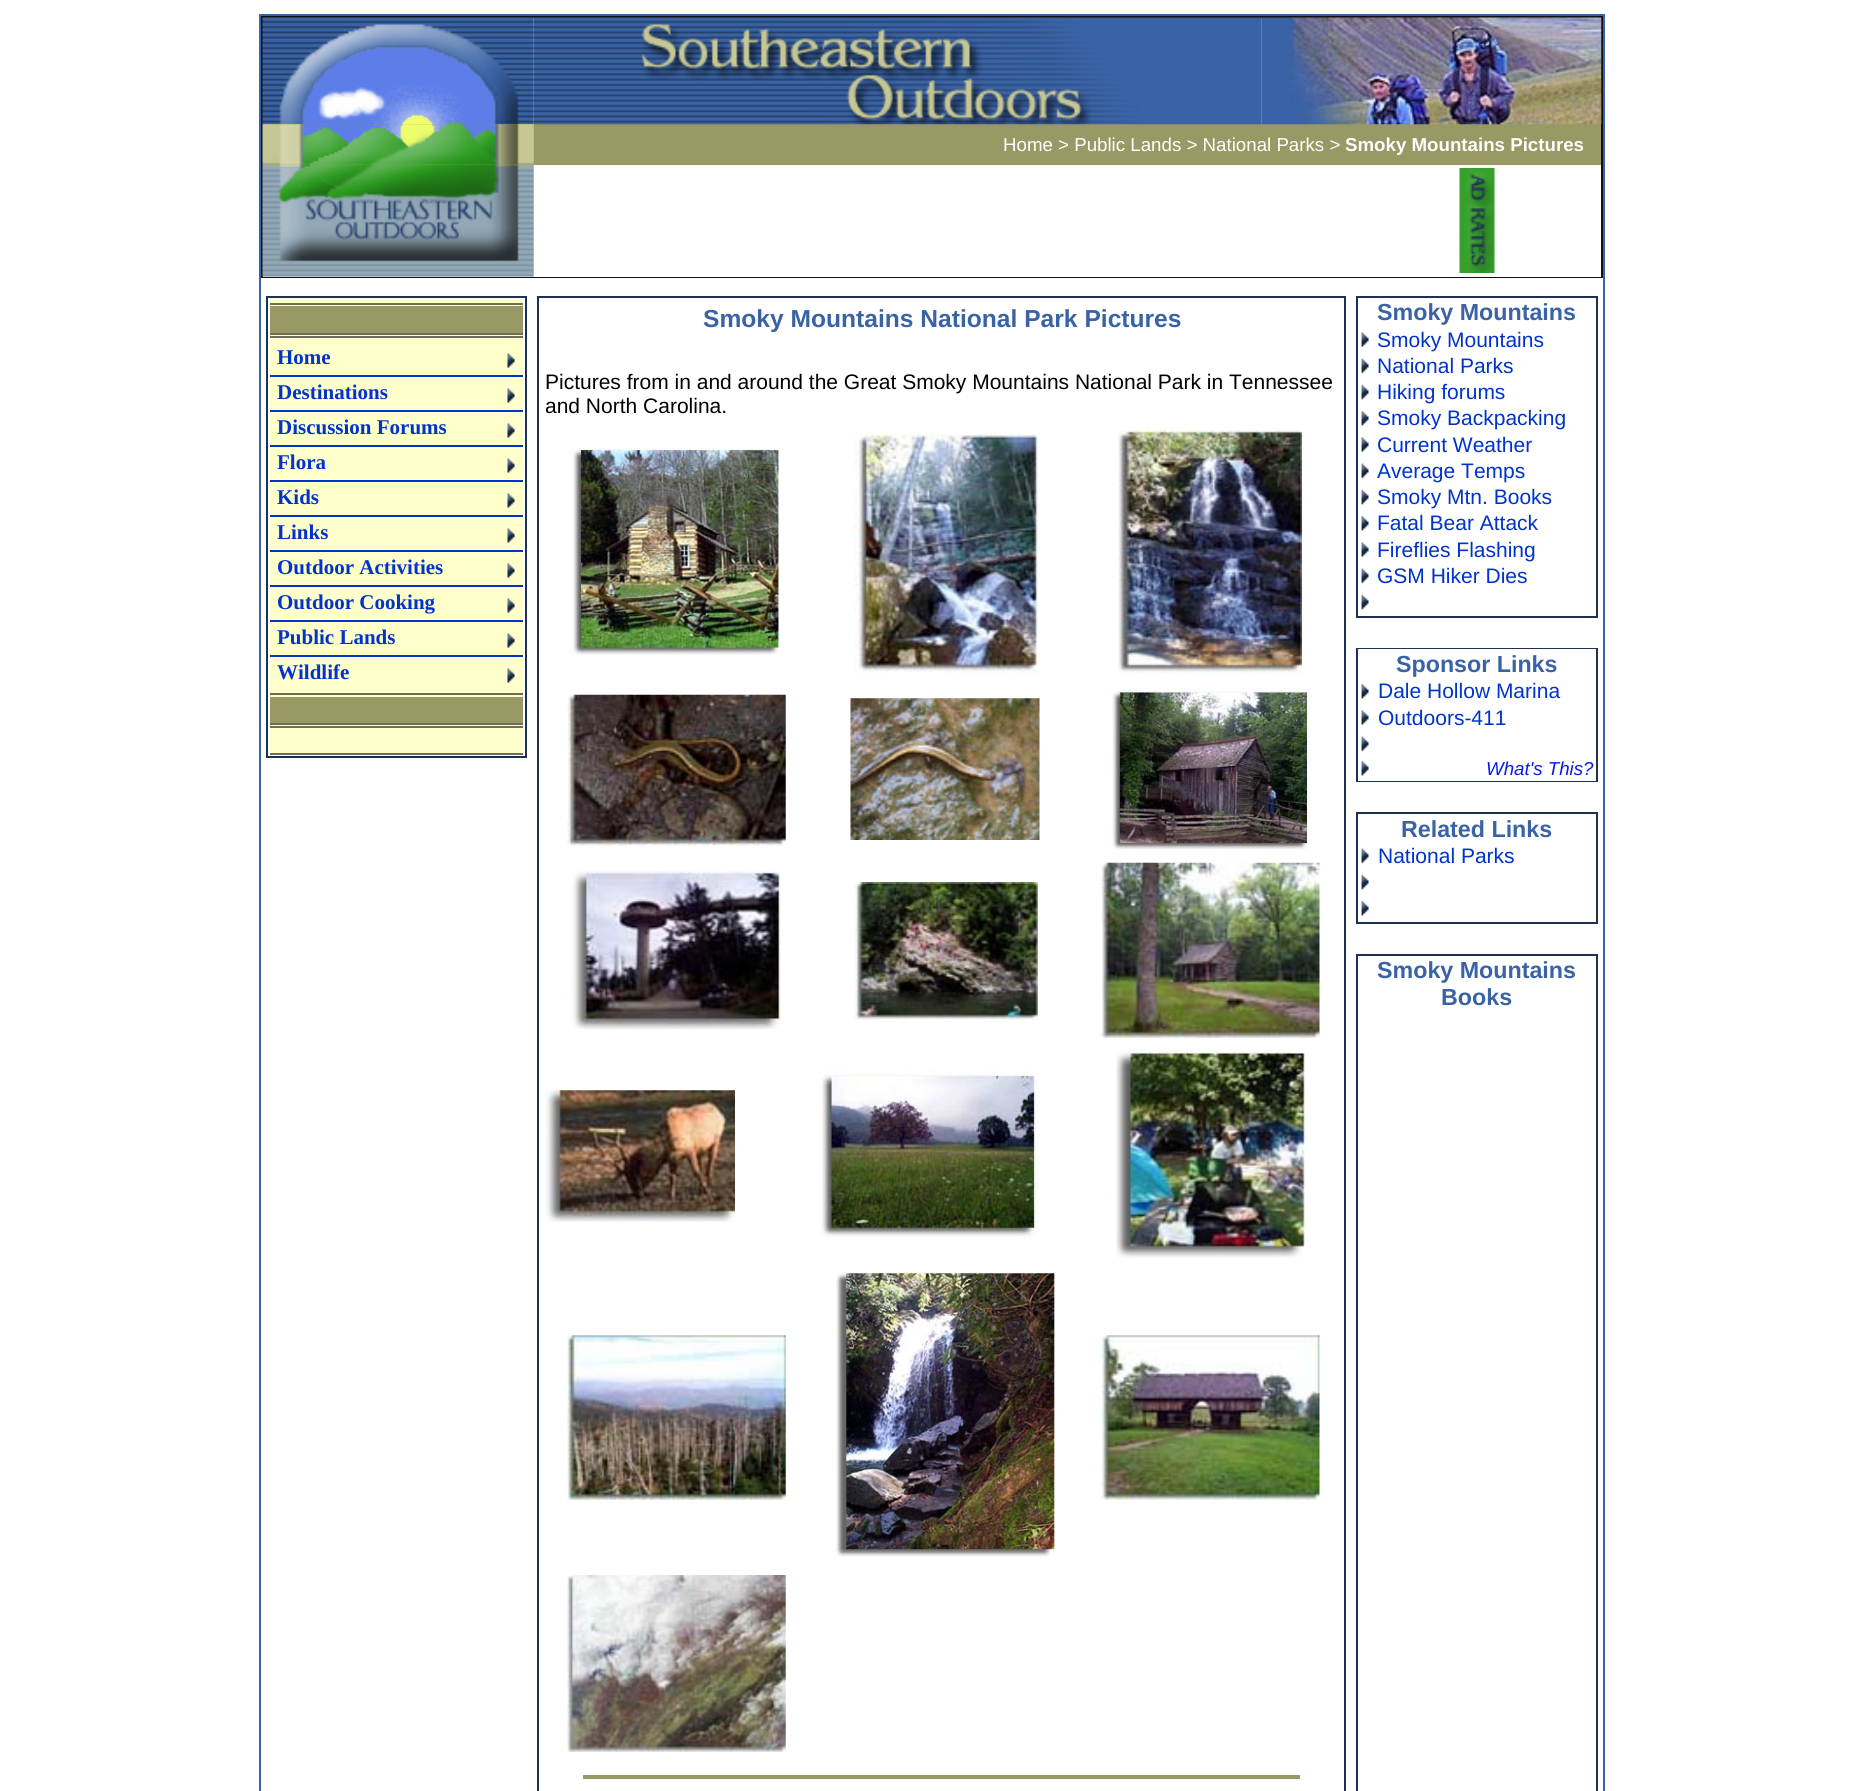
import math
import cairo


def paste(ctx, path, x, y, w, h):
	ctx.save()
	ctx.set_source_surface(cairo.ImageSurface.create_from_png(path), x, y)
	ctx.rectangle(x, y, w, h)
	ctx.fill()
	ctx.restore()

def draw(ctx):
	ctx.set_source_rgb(1, 1, 1)
	ctx.paint()
	ctx.set_source_rgb(0.227, 0.388, 0.647)
	ctx.rectangle(259, 14, 1346, 1777)
	ctx.fill()
	ctx.set_source_rgb(1, 1, 1)
	ctx.rectangle(261, 18, 1342, 1773)
	ctx.fill()
	ctx.set_source_rgb(0.067, 0.067, 0.067)
	ctx.rectangle(261, 16, 1342, 2)
	ctx.rectangle(1601, 16, 2, 262)
	ctx.rectangle(261, 277, 1342, 1)
	ctx.rectangle(261, 16, 2, 262)
	ctx.fill()
	ctx.set_source_rgb(0.6, 0.6, 0.4)
	ctx.rectangle(263, 124, 1338, 41)
	ctx.fill()
	paste(ctx, 'media/1.png', 262, 17, 272, 108)
	paste(ctx, 'media/2.png', 533, 17, 729, 108)
	paste(ctx, 'media/3.png', 1261, 17, 341, 108)
	paste(ctx, 'media/4.png', 262, 124, 272, 41)
	ctx.select_font_face('Liberation Sans')
	ctx.set_font_size(18.7)
	ctx.set_source_rgb(1, 1, 1)
	ctx.move_to(1003, 151)
	ctx.show_text('Home > Public Lands > National Parks >')
	ctx.select_font_face('Liberation Sans', cairo.FONT_SLANT_NORMAL, cairo.FONT_WEIGHT_BOLD)
	ctx.move_to(1345, 151)
	ctx.show_text('Smoky Mountains Pictures')
	paste(ctx, 'media/5.png', 262, 164, 272, 113)
	paste(ctx, 'media/6.png', 1459, 168, 36, 105)
	ctx.set_source_rgb(0.114, 0.192, 0.322)
	ctx.rectangle(266, 296, 261, 462)
	ctx.fill()
	ctx.set_source_rgb(1, 1, 1)
	ctx.rectangle(268, 298, 257, 458)
	ctx.fill()
	ctx.set_source_rgb(1, 1, 0.8)
	ctx.rectangle(270, 299, 253, 427)
	ctx.fill()
	ctx.set_source_rgb(0.431, 0.431, 0.345)
	ctx.rectangle(270, 303, 253, 2)
	ctx.fill()
	ctx.set_source_rgb(0.6, 0.6, 0.4)
	ctx.rectangle(270, 306, 253, 27)
	ctx.fill()
	ctx.set_source_rgb(0.431, 0.431, 0.345)
	ctx.rectangle(270, 333, 253, 2)
	ctx.rectangle(270, 336, 253, 2)
	ctx.fill()
	ctx.set_source_rgb(0, 0.2, 0.8)
	ctx.rectangle(270, 375, 253, 2)
	ctx.fill()
	ctx.select_font_face('Liberation Serif', cairo.FONT_SLANT_NORMAL, cairo.FONT_WEIGHT_BOLD)
	ctx.set_font_size(21)
	ctx.move_to(277, 364)
	ctx.show_text('Home')
	paste(ctx, 'media/7.png', 507, 353, 8, 15)
	ctx.rectangle(270, 410, 253, 2)
	ctx.fill()
	ctx.move_to(277, 399)
	ctx.show_text('Destinations')
	paste(ctx, 'media/7.png', 507, 388, 8, 15)
	ctx.rectangle(270, 445, 253, 2)
	ctx.fill()
	ctx.move_to(277, 434)
	ctx.show_text('Discussion Forums')
	paste(ctx, 'media/7.png', 507, 423, 8, 15)
	ctx.rectangle(270, 480, 253, 2)
	ctx.fill()
	ctx.move_to(277, 469)
	ctx.show_text('Flora')
	paste(ctx, 'media/7.png', 507, 458, 8, 15)
	ctx.rectangle(270, 515, 253, 2)
	ctx.fill()
	ctx.move_to(277, 504)
	ctx.show_text('Kids')
	paste(ctx, 'media/7.png', 507, 493, 8, 15)
	ctx.rectangle(270, 550, 253, 2)
	ctx.fill()
	ctx.move_to(277, 539)
	ctx.show_text('Links')
	paste(ctx, 'media/7.png', 507, 528, 8, 15)
	ctx.rectangle(270, 585, 253, 2)
	ctx.fill()
	ctx.move_to(277, 574)
	ctx.show_text('Outdoor Activities')
	paste(ctx, 'media/7.png', 507, 563, 8, 15)
	ctx.rectangle(270, 620, 253, 2)
	ctx.fill()
	ctx.move_to(277, 609)
	ctx.show_text('Outdoor Cooking')
	paste(ctx, 'media/7.png', 507, 598, 8, 15)
	ctx.rectangle(270, 655, 253, 2)
	ctx.fill()
	ctx.move_to(277, 644)
	ctx.show_text('Public Lands')
	paste(ctx, 'media/7.png', 507, 633, 8, 15)
	ctx.move_to(277, 679)
	ctx.show_text('Wildlife')
	paste(ctx, 'media/7.png', 507, 668, 8, 15)
	ctx.set_source_rgb(0.431, 0.431, 0.345)
	ctx.rectangle(270, 693, 253, 2)
	ctx.fill()
	ctx.set_source_rgb(0.6, 0.6, 0.4)
	ctx.rectangle(270, 697, 253, 26)
	ctx.fill()
	ctx.set_source_rgb(0.431, 0.431, 0.345)
	ctx.rectangle(270, 723, 253, 2)
	ctx.rectangle(270, 726, 253, 2)
	ctx.fill()
	ctx.set_source_rgb(1, 1, 0.8)
	ctx.rectangle(270, 728, 253, 25)
	ctx.fill()
	ctx.set_source_rgb(0.431, 0.431, 0.345)
	ctx.rectangle(270, 753, 253, 2)
	ctx.fill()
	ctx.set_source_rgb(0.114, 0.192, 0.322)
	ctx.rectangle(537, 296, 809, 1495)
	ctx.fill()
	ctx.set_source_rgb(1, 1, 1)
	ctx.rectangle(539, 298, 805, 1493)
	ctx.fill()
	ctx.select_font_face('Liberation Sans', cairo.FONT_SLANT_NORMAL, cairo.FONT_WEIGHT_BOLD)
	ctx.set_font_size(24.6)
	ctx.set_source_rgb(0.227, 0.388, 0.647)
	ctx.move_to(703, 327)
	ctx.show_text('Smoky Mountains National Park Pictures')
	ctx.select_font_face('Liberation Sans')
	ctx.set_font_size(21)
	ctx.set_source_rgb(0, 0, 0)
	ctx.move_to(545, 389)
	ctx.show_text('Pictures from in and around the Great Smoky Mountains National Park in Tennessee')
	ctx.move_to(545, 413)
	ctx.show_text('and North Carolina.')
	paste(ctx, 'media/8.png', 570, 448, 211, 207)
	paste(ctx, 'media/9.png', 854, 434, 184, 240)
	paste(ctx, 'media/10.png', 1118, 430, 184, 246)
	paste(ctx, 'media/11.png', 567, 694, 219, 152)
	paste(ctx, 'media/12.png', 850, 698, 190, 142)
	paste(ctx, 'media/13.png', 1110, 688, 201, 163)
	paste(ctx, 'media/14.png', 570, 871, 211, 158)
	paste(ctx, 'media/15.png', 854, 882, 184, 138)
	paste(ctx, 'media/16.png', 1100, 862, 220, 176)
	paste(ctx, 'media/17.png', 546, 1090, 189, 132)
	paste(ctx, 'media/18.png', 819, 1071, 219, 168)
	paste(ctx, 'media/19.png', 1116, 1050, 190, 208)
	paste(ctx, 'media/20.png', 567, 1335, 219, 165)
	paste(ctx, 'media/21.png', 836, 1272, 220, 285)
	paste(ctx, 'media/22.png', 1100, 1335, 220, 165)
	paste(ctx, 'media/23.png', 567, 1575, 219, 177)
	ctx.set_source_rgb(0.6, 0.6, 0.4)
	ctx.rectangle(583, 1775, 717, 4)
	ctx.fill()
	ctx.set_source_rgb(0.114, 0.192, 0.322)
	ctx.rectangle(1356, 296, 242, 322)
	ctx.fill()
	ctx.set_source_rgb(1, 1, 1)
	ctx.rectangle(1358, 298, 238, 318)
	ctx.fill()
	ctx.select_font_face('Liberation Sans', cairo.FONT_SLANT_NORMAL, cairo.FONT_WEIGHT_BOLD)
	ctx.set_font_size(23.25)
	ctx.set_source_rgb(0.227, 0.388, 0.647)
	ctx.move_to(1377, 320)
	ctx.show_text('Smoky Mountains')
	paste(ctx, 'media/24.png', 1361, 332, 8, 15)
	ctx.select_font_face('Liberation Sans')
	ctx.set_font_size(21)
	ctx.set_source_rgb(0, 0.2, 0.8)
	ctx.move_to(1377, 347)
	ctx.show_text('Smoky Mountains')
	paste(ctx, 'media/25.png', 1361, 358, 8, 16)
	ctx.move_to(1377, 373)
	ctx.show_text('National Parks')
	paste(ctx, 'media/26.png', 1361, 384, 8, 16)
	ctx.move_to(1377, 399)
	ctx.show_text('Hiking forums')
	paste(ctx, 'media/27.png', 1361, 410, 8, 16)
	ctx.move_to(1377, 425)
	ctx.show_text('Smoky Backpacking')
	paste(ctx, 'media/24.png', 1361, 437, 8, 15)
	ctx.move_to(1377, 452)
	ctx.show_text('Current Weather')
	paste(ctx, 'media/25.png', 1361, 463, 8, 16)
	ctx.move_to(1377, 478)
	ctx.show_text('Average Temps')
	paste(ctx, 'media/26.png', 1361, 489, 8, 16)
	ctx.move_to(1377, 504)
	ctx.show_text('Smoky Mtn. Books')
	paste(ctx, 'media/27.png', 1361, 515, 8, 16)
	ctx.move_to(1377, 530)
	ctx.show_text('Fatal Bear Attack')
	paste(ctx, 'media/24.png', 1361, 542, 8, 15)
	ctx.move_to(1377, 557)
	ctx.show_text('Fireflies Flashing')
	paste(ctx, 'media/25.png', 1361, 568, 8, 16)
	ctx.move_to(1377, 583)
	ctx.show_text('GSM Hiker Dies')
	paste(ctx, 'media/26.png', 1361, 594, 8, 16)
	ctx.set_source_rgb(0.114, 0.192, 0.322)
	ctx.rectangle(1356, 648, 242, 134)
	ctx.fill()
	ctx.set_source_rgb(1, 1, 1)
	ctx.rectangle(1358, 649, 238, 132)
	ctx.fill()
	ctx.select_font_face('Liberation Sans', cairo.FONT_SLANT_NORMAL, cairo.FONT_WEIGHT_BOLD)
	ctx.set_font_size(23.25)
	ctx.set_source_rgb(0.227, 0.388, 0.647)
	ctx.move_to(1396, 672)
	ctx.show_text('Sponsor Links')
	paste(ctx, 'media/27.png', 1361, 683, 8, 16)
	ctx.select_font_face('Liberation Sans')
	ctx.set_font_size(21)
	ctx.set_source_rgb(0, 0.2, 0.8)
	ctx.move_to(1378, 698)
	ctx.show_text('Dale Hollow Marina')
	paste(ctx, 'media/24.png', 1361, 710, 8, 15)
	ctx.move_to(1378, 725)
	ctx.show_text('Outdoors-411')
	paste(ctx, 'media/25.png', 1361, 736, 8, 16)
	paste(ctx, 'media/27.png', 1361, 760, 8, 16)
	ctx.select_font_face('Liberation Sans', cairo.FONT_SLANT_ITALIC)
	ctx.set_font_size(18.7)
	ctx.set_source_rgb(0.035, 0.102, 0.945)
	ctx.move_to(1486, 775)
	ctx.show_text('What\'s This?')
	ctx.set_source_rgb(0.114, 0.192, 0.322)
	ctx.rectangle(1356, 812, 242, 112)
	ctx.fill()
	ctx.set_source_rgb(1, 1, 1)
	ctx.rectangle(1358, 814, 238, 108)
	ctx.fill()
	ctx.select_font_face('Liberation Sans', cairo.FONT_SLANT_NORMAL, cairo.FONT_WEIGHT_BOLD)
	ctx.set_font_size(23.25)
	ctx.set_source_rgb(0.227, 0.388, 0.647)
	ctx.move_to(1401, 837)
	ctx.show_text('Related Links')
	paste(ctx, 'media/25.png', 1361, 848, 8, 16)
	ctx.select_font_face('Liberation Sans')
	ctx.set_font_size(21)
	ctx.set_source_rgb(0, 0.2, 0.8)
	ctx.move_to(1378, 863)
	ctx.show_text('National Parks')
	paste(ctx, 'media/26.png', 1361, 874, 8, 16)
	paste(ctx, 'media/27.png', 1361, 900, 8, 16)
	ctx.set_source_rgb(0.114, 0.192, 0.322)
	ctx.rectangle(1356, 954, 242, 837)
	ctx.fill()
	ctx.set_source_rgb(1, 1, 1)
	ctx.rectangle(1358, 956, 238, 835)
	ctx.fill()
	ctx.select_font_face('Liberation Sans', cairo.FONT_SLANT_NORMAL, cairo.FONT_WEIGHT_BOLD)
	ctx.set_font_size(23.25)
	ctx.set_source_rgb(0.227, 0.388, 0.647)
	ctx.move_to(1377, 978)
	ctx.show_text('Smoky Mountains')
	ctx.move_to(1441, 1005)
	ctx.show_text('Books')


surface = cairo.ImageSurface(cairo.FORMAT_RGB24, 1862, 1791)
ctx = cairo.Context(surface)
options = cairo.FontOptions()
options.set_hint_metrics(cairo.HINT_METRICS_OFF)
options.set_hint_style(cairo.HINT_STYLE_NONE)
ctx.set_font_options(options)
ctx.set_miter_limit(4)
draw(ctx)
surface.write_to_png('image.png')
